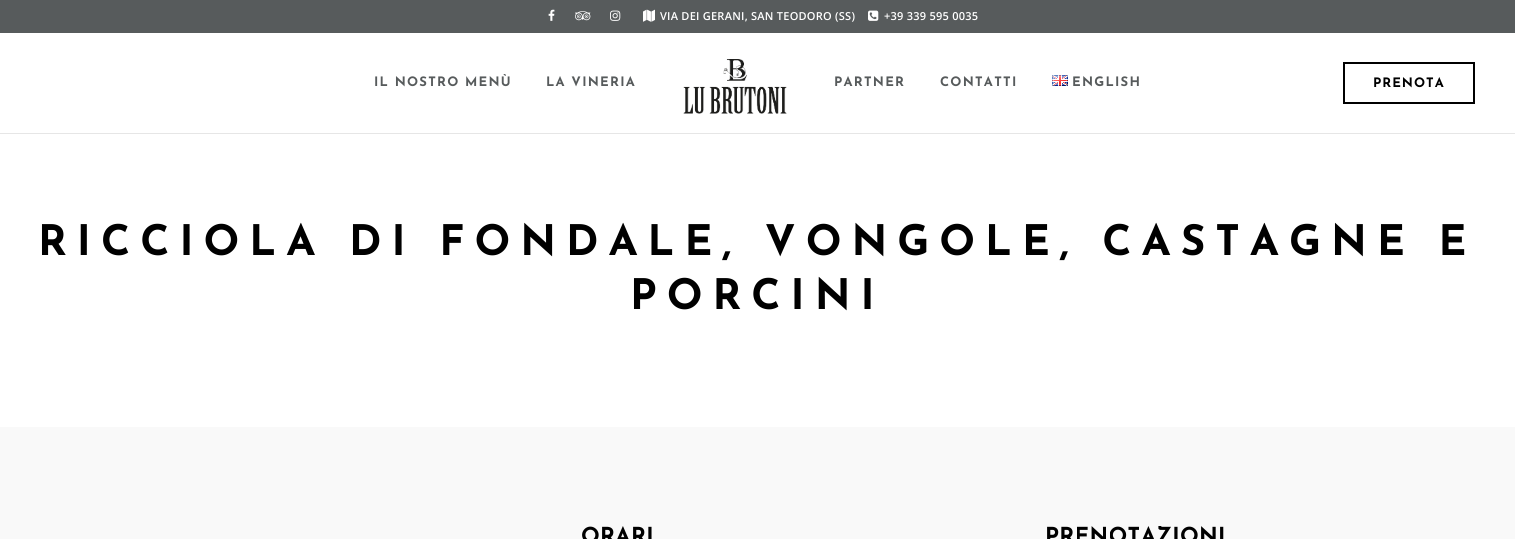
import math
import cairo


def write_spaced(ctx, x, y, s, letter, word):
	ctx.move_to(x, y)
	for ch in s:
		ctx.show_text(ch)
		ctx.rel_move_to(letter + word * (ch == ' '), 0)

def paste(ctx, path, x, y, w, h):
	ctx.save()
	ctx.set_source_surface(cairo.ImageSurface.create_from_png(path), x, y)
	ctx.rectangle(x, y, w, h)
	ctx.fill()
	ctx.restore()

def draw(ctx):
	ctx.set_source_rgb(1, 1, 1)
	ctx.paint()
	ctx.set_source_rgb(0.902, 0.902, 0.902)
	ctx.rectangle(0, 133, 1515, 1)
	ctx.fill()
	ctx.set_source_rgb(0.341, 0.357, 0.361)
	ctx.rectangle(0, 0, 1515, 33)
	ctx.fill()
	paste(ctx, 'media/1.png', 548, 9, 7, 12)
	paste(ctx, 'media/2.png', 575, 11, 16, 10)
	paste(ctx, 'media/3.png', 610, 10, 11, 11)
	paste(ctx, 'media/4.png', 643, 9, 12, 13)
	ctx.select_font_face('Open Sans SemiBold')
	ctx.set_font_size(11)
	ctx.set_source_rgb(1, 1, 1)
	write_spaced(ctx, 660, 20, 'VIA DEI GERANI, SAN TEODORO (SS)', 0.25, 0)
	paste(ctx, 'media/5.png', 868, 10, 11, 11)
	write_spaced(ctx, 884, 20, '+39 339 595 0035', 0.25, 0)
	ctx.select_font_face('Josefin Sans', cairo.FONT_SLANT_NORMAL, cairo.FONT_WEIGHT_BOLD)
	ctx.set_font_size(13)
	ctx.set_source_rgb(0.341, 0.357, 0.361)
	write_spaced(ctx, 374, 86, 'IL NOSTRO MENÙ', 1.25, 0)
	write_spaced(ctx, 546, 86, 'LA VINERIA', 1.25, 0)
	paste(ctx, 'media/6.png', 683, 59, 104, 55)
	write_spaced(ctx, 834, 86, 'PARTNER', 1.25, 0)
	write_spaced(ctx, 940, 86, 'CONTATTI', 1.25, 0)
	paste(ctx, 'media/7.png', 1052, 75, 16, 11)
	write_spaced(ctx, 1072, 86, 'ENGLISH', 1.25, 0)
	ctx.rectangle(1344, 63, 130, 40)
	ctx.set_source_rgb(0, 0, 0)
	ctx.stroke()
	write_spaced(ctx, 1373, 87, 'PRENOTA', 1, 0)
	ctx.set_font_size(42)
	write_spaced(ctx, 38, 255, 'RICCIOLA DI FONDALE, VONGOLE, CASTAGNE E', 10, 0)
	write_spaced(ctx, 630, 309, 'PORCINI', 10, 0)
	ctx.set_source_rgb(0.976, 0.976, 0.976)
	ctx.rectangle(0, 427, 1515, 112)
	ctx.fill()
	ctx.set_font_size(22)
	ctx.set_source_rgb(0, 0, 0)
	write_spaced(ctx, 581, 543, 'ORARI', 0.25, 0)
	write_spaced(ctx, 1045, 543, 'PRENOTAZIONI', 0.25, 0)


surface = cairo.ImageSurface(cairo.FORMAT_RGB24, 1515, 539)
ctx = cairo.Context(surface)
options = cairo.FontOptions()
options.set_hint_metrics(cairo.HINT_METRICS_OFF)
options.set_hint_style(cairo.HINT_STYLE_NONE)
ctx.set_font_options(options)
ctx.set_miter_limit(4)
draw(ctx)
surface.write_to_png('image.png')
